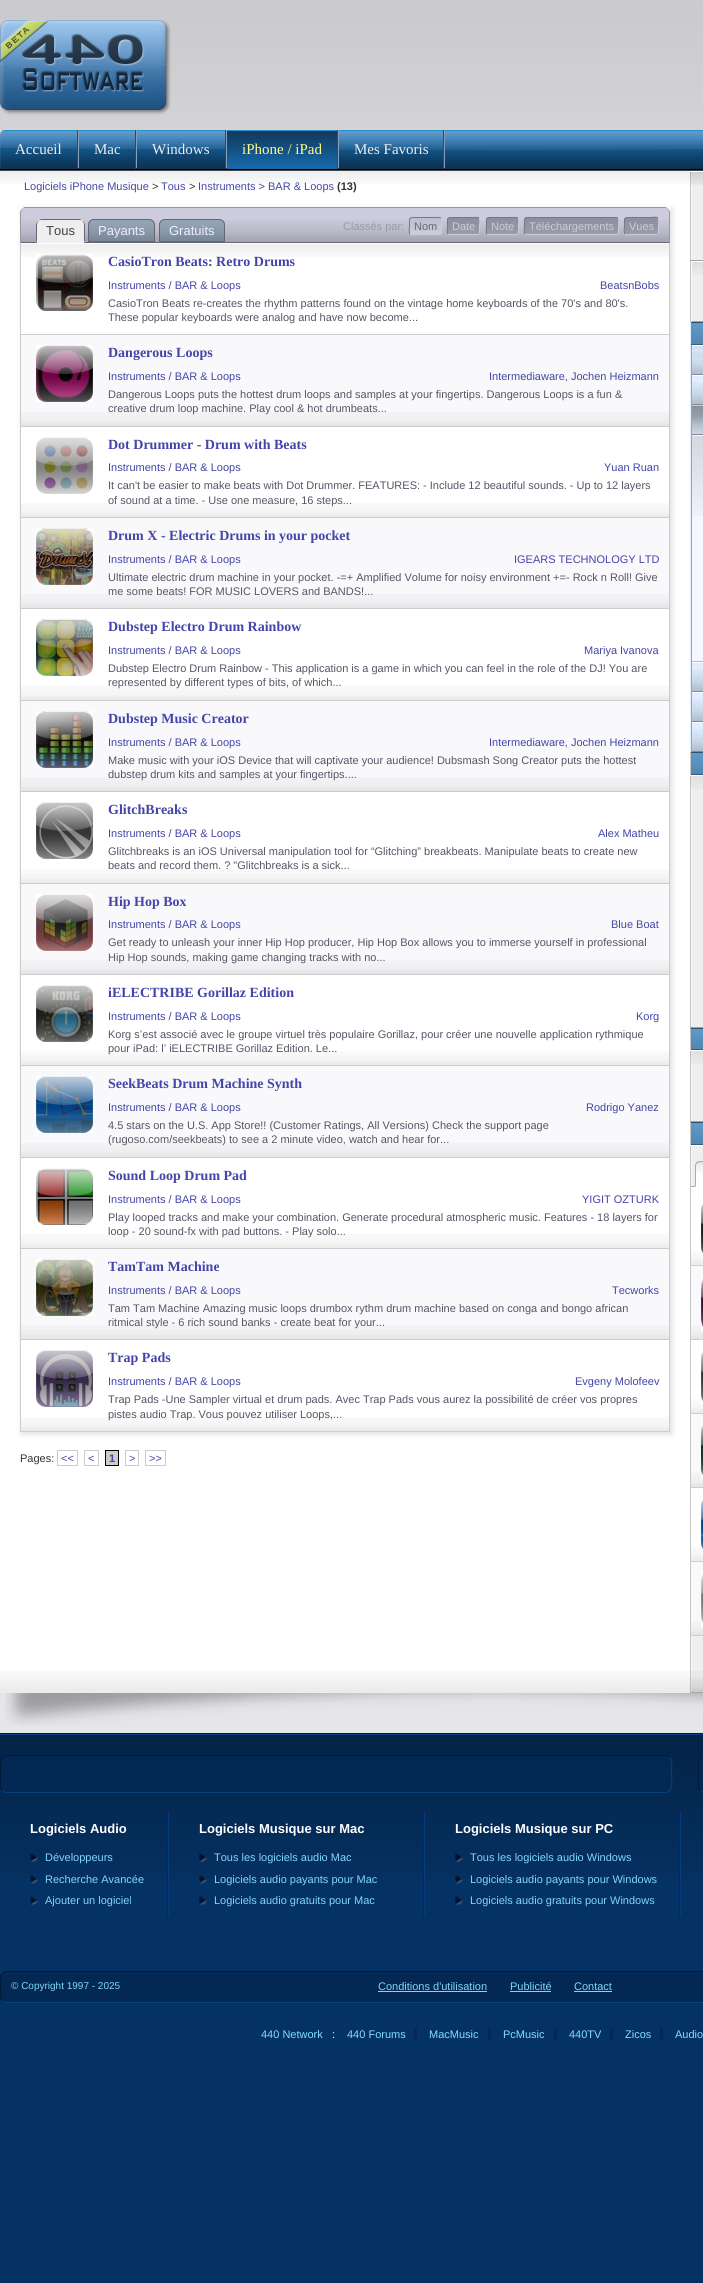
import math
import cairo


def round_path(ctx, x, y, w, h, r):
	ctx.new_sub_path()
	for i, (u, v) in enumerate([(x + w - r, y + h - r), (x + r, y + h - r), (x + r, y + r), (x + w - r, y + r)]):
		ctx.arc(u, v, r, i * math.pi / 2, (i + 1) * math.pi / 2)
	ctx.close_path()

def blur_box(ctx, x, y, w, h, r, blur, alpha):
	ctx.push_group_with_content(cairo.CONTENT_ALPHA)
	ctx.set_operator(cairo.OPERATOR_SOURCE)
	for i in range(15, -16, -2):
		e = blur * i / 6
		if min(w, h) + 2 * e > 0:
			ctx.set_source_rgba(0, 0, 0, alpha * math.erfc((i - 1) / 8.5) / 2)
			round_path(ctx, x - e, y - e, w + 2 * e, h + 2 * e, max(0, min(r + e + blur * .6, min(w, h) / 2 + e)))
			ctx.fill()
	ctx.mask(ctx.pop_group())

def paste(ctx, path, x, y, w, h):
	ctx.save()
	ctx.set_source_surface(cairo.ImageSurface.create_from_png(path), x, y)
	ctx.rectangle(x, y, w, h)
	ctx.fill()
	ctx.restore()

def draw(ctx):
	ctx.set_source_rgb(0.02, 0.196, 0.392)
	ctx.paint()
	ctx.set_source_rgb(0.902, 0.902, 0.914)
	ctx.rectangle(0, 0, 703, 1733)
	ctx.fill()
	paste(ctx, 'media/1.png', 0, 0, 703, 135)
	paste(ctx, 'media/2.png', 0, 20, 171, 95)
	paste(ctx, 'media/3.png', 0, 130, 703, 39)
	ctx.set_source_rgb(0, 0, 0)
	ctx.rectangle(0, 169, 703, 1)
	ctx.fill()
	ctx.set_source_rgb(0.267, 0.267, 0.267)
	ctx.rectangle(77, 130, 1, 39)
	ctx.fill()
	ctx.select_font_face('Liberation Serif')
	ctx.set_font_size(15)
	ctx.set_source_rgb(0.933, 0.933, 0.933)
	ctx.move_to(15, 154)
	ctx.show_text('Accueil')
	ctx.set_source_rgb(0.541, 0.616, 0.722)
	ctx.rectangle(78, 130, 1, 38)
	ctx.fill()
	ctx.set_source_rgb(0.267, 0.267, 0.267)
	ctx.rectangle(135, 130, 1, 39)
	ctx.fill()
	ctx.set_source_rgb(0.933, 0.933, 0.933)
	ctx.move_to(94, 154)
	ctx.show_text('Mac')
	ctx.set_source_rgb(0.541, 0.616, 0.722)
	ctx.rectangle(136, 130, 1, 38)
	ctx.fill()
	ctx.set_source_rgb(0.267, 0.267, 0.267)
	ctx.rectangle(225, 130, 1, 39)
	ctx.fill()
	ctx.set_source_rgb(0.933, 0.933, 0.933)
	ctx.move_to(152, 154)
	ctx.show_text('Windows')
	ctx.set_source_rgb(0.541, 0.616, 0.722)
	ctx.rectangle(226, 130, 1, 38)
	ctx.fill()
	paste(ctx, 'media/4.png', 227, 131, 110, 38)
	ctx.set_source_rgb(0.267, 0.267, 0.267)
	ctx.rectangle(337, 130, 1, 39)
	ctx.fill()
	ctx.set_source_rgb(1, 0.984, 0.541)
	ctx.move_to(242, 154)
	ctx.show_text('iPhone / iPad')
	ctx.set_source_rgb(0.541, 0.616, 0.722)
	ctx.rectangle(338, 130, 1, 38)
	ctx.fill()
	ctx.set_source_rgb(0.267, 0.267, 0.267)
	ctx.rectangle(443, 130, 1, 39)
	ctx.fill()
	ctx.set_source_rgb(0.933, 0.933, 0.933)
	ctx.move_to(354, 154)
	ctx.show_text('Mes Favoris')
	ctx.set_source_rgb(0.541, 0.616, 0.722)
	ctx.rectangle(444, 130, 1, 38)
	ctx.fill()
	ctx.set_source_rgb(1, 1, 1)
	ctx.rectangle(0, 171, 690, 1522)
	ctx.fill()
	paste(ctx, 'media/5.png', 690, 172, 13, 1521)
	ctx.set_source_rgb(0.267, 0.267, 0.267)
	ctx.rectangle(0, 170, 703, 1)
	ctx.fill()
	paste(ctx, 'media/6.png', 0, 171, 703, 13)
	paste(ctx, 'media/7.png', 0, 1671, 703, 22)
	ctx.select_font_face('Liberation Sans')
	ctx.set_font_size(11)
	ctx.set_source_rgb(0.267, 0.267, 0.667)
	ctx.move_to(24, 190)
	ctx.show_text('Logiciels iPhone Musique')
	ctx.set_source_rgb(0.2, 0.2, 0.2)
	ctx.move_to(152, 190)
	ctx.show_text('>')
	ctx.set_source_rgb(0.267, 0.267, 0.667)
	ctx.move_to(161, 190)
	ctx.show_text('Tous')
	ctx.set_source_rgb(0.2, 0.2, 0.2)
	ctx.move_to(189, 190)
	ctx.show_text('>')
	ctx.set_source_rgb(0.267, 0.267, 0.667)
	ctx.move_to(198, 190)
	ctx.show_text('Instruments > BAR & Loops')
	ctx.select_font_face('Liberation Sans', cairo.FONT_SLANT_NORMAL, cairo.FONT_WEIGHT_BOLD)
	ctx.set_source_rgb(0.2, 0.2, 0.2)
	ctx.move_to(337, 190)
	ctx.show_text('(13)')
	ctx.save()
	ctx.set_fill_rule(cairo.FILL_RULE_EVEN_ODD)
	ctx.new_path()
	ctx.move_to(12, 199)
	ctx.line_to(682, 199)
	ctx.line_to(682, 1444)
	ctx.line_to(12, 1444)
	ctx.close_path()
	ctx.move_to(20, 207)
	ctx.line_to(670, 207)
	ctx.line_to(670, 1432)
	ctx.line_to(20, 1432)
	ctx.close_path()
	ctx.clip()
	ctx.set_source_rgb(0.867, 0.867, 0.867)
	blur_box(ctx, 22, 209, 650, 1225, 0, 3, 1)
	ctx.restore()
	ctx.set_source_rgb(0.8, 0.8, 0.867)
	ctx.new_path()
	ctx.move_to(26, 207)
	ctx.line_to(664, 207)
	ctx.curve_to(667.5, 207, 670, 209.5, 670, 213)
	ctx.line_to(670, 243)
	ctx.line_to(20, 243)
	ctx.line_to(20, 213)
	ctx.curve_to(20, 209.5, 22.5, 207, 26, 207)
	ctx.close_path()
	ctx.fill()
	paste(ctx, 'media/8.png', 21, 220, 648, 22)
	ctx.set_source_rgb(0.6, 0.6, 0.6)
	ctx.new_path()
	ctx.move_to(26, 207)
	ctx.curve_to(24, 207, 23, 208, 22, 209)
	ctx.curve_to(23, 208, 24, 208, 26, 208)
	ctx.line_to(664, 208)
	ctx.curve_to(666, 208, 667, 208, 668, 209)
	ctx.curve_to(667, 208, 666, 207, 664, 207)
	ctx.close_path()
	ctx.fill()
	ctx.new_path()
	ctx.move_to(670, 243)
	ctx.line_to(670, 213)
	ctx.curve_to(670, 211.5, 669, 210, 668, 209)
	ctx.line_to(667.5, 209.5)
	ctx.curve_to(668.5, 210, 669, 211.5, 669, 213)
	ctx.line_to(669, 242)
	ctx.close_path()
	ctx.fill()
	ctx.set_source_rgb(0.4, 0.4, 0.467)
	ctx.new_path()
	ctx.move_to(670, 243)
	ctx.line_to(669, 242)
	ctx.line_to(21, 242)
	ctx.line_to(20, 243)
	ctx.close_path()
	ctx.fill()
	ctx.set_source_rgb(0.6, 0.6, 0.6)
	ctx.new_path()
	ctx.move_to(20, 243)
	ctx.line_to(21, 242)
	ctx.line_to(21, 213)
	ctx.curve_to(21, 211.5, 21.5, 210, 22.5, 209.5)
	ctx.line_to(22, 209)
	ctx.curve_to(21, 210, 20, 211.5, 20, 213)
	ctx.close_path()
	ctx.fill()
	ctx.set_source_rgb(0.6, 0.667, 0.733)
	ctx.new_path()
	ctx.move_to(94, 219)
	ctx.line_to(149, 219)
	ctx.curve_to(152.5, 219, 155, 221.5, 155, 225)
	ctx.line_to(155, 242)
	ctx.line_to(88, 242)
	ctx.line_to(88, 225)
	ctx.curve_to(88, 221.5, 90.5, 219, 94, 219)
	ctx.close_path()
	ctx.fill()
	paste(ctx, 'media/9.png', 88, 220, 67, 21)
	ctx.new_path()
	ctx.move_to(165, 219)
	ctx.line_to(219, 219)
	ctx.curve_to(222.5, 219, 225, 221.5, 225, 225)
	ctx.line_to(225, 242)
	ctx.line_to(159, 242)
	ctx.line_to(159, 225)
	ctx.curve_to(159, 221.5, 161.5, 219, 165, 219)
	ctx.close_path()
	ctx.fill()
	paste(ctx, 'media/10.png', 159, 220, 66, 21)
	ctx.set_source_rgb(0.933, 0.933, 0.933)
	ctx.new_path()
	ctx.move_to(42, 219)
	ctx.line_to(79, 219)
	ctx.curve_to(82.5, 219, 85, 221.5, 85, 225)
	ctx.line_to(85, 242)
	ctx.line_to(36, 242)
	ctx.line_to(36, 225)
	ctx.curve_to(36, 221.5, 38.5, 219, 42, 219)
	ctx.close_path()
	ctx.fill()
	ctx.set_source_rgb(0.4, 0.4, 0.467)
	ctx.new_path()
	ctx.move_to(42, 219)
	ctx.curve_to(40, 219, 39, 220, 38, 221)
	ctx.curve_to(39, 220, 40, 220, 42, 220)
	ctx.line_to(79, 220)
	ctx.curve_to(80, 220, 82, 220, 83, 221)
	ctx.curve_to(82, 220, 80, 219, 79, 219)
	ctx.close_path()
	ctx.move_to(85, 242)
	ctx.line_to(85, 225)
	ctx.curve_to(85, 223.5, 84, 222, 83, 221)
	ctx.line_to(82.5, 221.5)
	ctx.curve_to(83.5, 222, 84, 223.5, 84, 225)
	ctx.line_to(84, 241)
	ctx.close_path()
	ctx.fill()
	ctx.select_font_face('Liberation Sans')
	ctx.set_font_size(13)
	ctx.set_source_rgb(0.267, 0.267, 0.267)
	ctx.move_to(46, 235)
	ctx.show_text('Tous')
	ctx.set_source_rgb(0.933, 0.933, 0.933)
	ctx.new_path()
	ctx.move_to(85, 242)
	ctx.line_to(84, 241)
	ctx.line_to(37, 241)
	ctx.line_to(36, 242)
	ctx.close_path()
	ctx.fill()
	ctx.set_source_rgb(0.4, 0.4, 0.467)
	ctx.new_path()
	ctx.move_to(36, 242)
	ctx.line_to(37, 241)
	ctx.line_to(37, 225)
	ctx.curve_to(37, 223.5, 37.5, 222, 38.5, 221.5)
	ctx.line_to(38, 221)
	ctx.curve_to(37, 222, 36, 223.5, 36, 225)
	ctx.close_path()
	ctx.fill()
	ctx.set_source_rgb(0.933, 0.933, 0.933)
	ctx.rectangle(37, 242, 47, 1)
	ctx.fill()
	ctx.new_path()
	ctx.move_to(94, 219.5)
	ctx.line_to(149, 219.5)
	ctx.curve_to(152, 219.5, 154.5, 222, 154.5, 225)
	ctx.line_to(154.5, 241.5)
	ctx.line_to(88.5, 241.5)
	ctx.line_to(88.5, 225)
	ctx.curve_to(88.5, 222, 91, 219.5, 94, 219.5)
	ctx.close_path()
	ctx.set_source_rgb(0.4, 0.4, 0.467)
	ctx.set_line_width(1)
	ctx.stroke()
	ctx.set_source_rgb(0.933, 0.933, 1)
	ctx.move_to(98, 235)
	ctx.show_text('Payants')
	ctx.new_path()
	ctx.move_to(165, 219.5)
	ctx.line_to(219, 219.5)
	ctx.curve_to(222, 219.5, 224.5, 222, 224.5, 225)
	ctx.line_to(224.5, 241.5)
	ctx.line_to(159.5, 241.5)
	ctx.line_to(159.5, 225)
	ctx.curve_to(159.5, 222, 162, 219.5, 165, 219.5)
	ctx.close_path()
	ctx.set_source_rgb(0.4, 0.4, 0.467)
	ctx.stroke()
	ctx.set_source_rgb(0.933, 0.933, 1)
	ctx.move_to(169, 235)
	ctx.show_text('Gratuits')
	ctx.set_font_size(11)
	ctx.set_source_rgb(0.6, 0.6, 0.667)
	ctx.move_to(343, 230)
	ctx.show_text('Classés par:')
	ctx.set_source_rgb(0.8, 0.8, 0.867)
	round_path(ctx, 409, 217, 33, 18, 3)
	ctx.fill()
	paste(ctx, 'media/11.png', 409, 218, 33, 13)
	ctx.set_source_rgb(0.6, 0.6, 0.667)
	round_path(ctx, 447, 217, 33, 18, 3)
	ctx.fill()
	paste(ctx, 'media/12.png', 447, 218, 33, 12)
	round_path(ctx, 486, 217, 33, 18, 3)
	ctx.fill()
	paste(ctx, 'media/12.png', 486, 218, 33, 12)
	round_path(ctx, 524, 217, 95, 18, 3)
	ctx.fill()
	paste(ctx, 'media/13.png', 524, 218, 95, 12)
	round_path(ctx, 624, 217, 35, 18, 3)
	ctx.fill()
	paste(ctx, 'media/14.png', 624, 218, 35, 12)
	ctx.new_path()
	ctx.move_to(441, 218)
	ctx.curve_to(442.5, 219.5, 441.5, 224, 441.5, 226)
	ctx.curve_to(441.5, 234.5, 443, 234.5, 434.5, 234.5)
	ctx.line_to(416.5, 234.5)
	ctx.curve_to(415.5, 234.5, 411.5, 235, 410, 234)
	ctx.set_source_rgb(0.8, 0.8, 0.867)
	ctx.stroke()
	ctx.new_path()
	ctx.move_to(410, 234)
	ctx.curve_to(408.5, 232.5, 409.5, 228, 409.5, 226)
	ctx.curve_to(409.5, 217.5, 408, 217.5, 416.5, 217.5)
	ctx.line_to(434.5, 217.5)
	ctx.curve_to(435.5, 217.5, 439.5, 217, 441, 218)
	ctx.set_source_rgb(0.467, 0.467, 0.533)
	ctx.stroke()
	ctx.set_source_rgb(0.4, 0.4, 0.467)
	ctx.move_to(414, 230)
	ctx.show_text('Nom')
	ctx.new_path()
	ctx.move_to(479, 218)
	ctx.curve_to(480.5, 219.5, 479.5, 224, 479.5, 226)
	ctx.curve_to(479.5, 234.5, 481, 234.5, 472.5, 234.5)
	ctx.line_to(454.5, 234.5)
	ctx.curve_to(453.5, 234.5, 449.5, 235, 448, 234)
	ctx.set_source_rgb(0.8, 0.8, 0.867)
	ctx.stroke()
	ctx.new_path()
	ctx.move_to(448, 234)
	ctx.curve_to(446.5, 232.5, 447.5, 228, 447.5, 226)
	ctx.curve_to(447.5, 217.5, 446, 217.5, 454.5, 217.5)
	ctx.line_to(472.5, 217.5)
	ctx.curve_to(473.5, 217.5, 477.5, 217, 479, 218)
	ctx.set_source_rgb(0.467, 0.467, 0.533)
	ctx.stroke()
	ctx.set_source_rgb(0.8, 0.8, 0.867)
	ctx.move_to(452, 230)
	ctx.show_text('Date')
	ctx.new_path()
	ctx.move_to(518, 218)
	ctx.curve_to(519.5, 219.5, 518.5, 224, 518.5, 226)
	ctx.curve_to(518.5, 234.5, 520, 234.5, 511.5, 234.5)
	ctx.line_to(493.5, 234.5)
	ctx.curve_to(492.5, 234.5, 488.5, 235, 487, 234)
	ctx.stroke()
	ctx.new_path()
	ctx.move_to(487, 234)
	ctx.curve_to(485.5, 232.5, 486.5, 228, 486.5, 226)
	ctx.curve_to(486.5, 217.5, 485, 217.5, 493.5, 217.5)
	ctx.line_to(511.5, 217.5)
	ctx.curve_to(512.5, 217.5, 516.5, 217, 518, 218)
	ctx.set_source_rgb(0.467, 0.467, 0.533)
	ctx.stroke()
	ctx.set_source_rgb(0.8, 0.8, 0.867)
	ctx.move_to(491, 230)
	ctx.show_text('Note')
	ctx.new_path()
	ctx.move_to(618, 218)
	ctx.curve_to(619.5, 220, 618.5, 226, 618.5, 228)
	ctx.curve_to(618.5, 230, 619.5, 234.5, 616, 234.5)
	ctx.line_to(527, 234.5)
	ctx.line_to(525, 234)
	ctx.stroke()
	ctx.new_path()
	ctx.move_to(525, 234)
	ctx.curve_to(523.5, 232, 524.5, 226, 524.5, 224)
	ctx.curve_to(524.5, 222, 523.5, 217.5, 527, 217.5)
	ctx.line_to(616, 217.5)
	ctx.line_to(618, 218)
	ctx.set_source_rgb(0.467, 0.467, 0.533)
	ctx.stroke()
	ctx.set_source_rgb(0.8, 0.8, 0.867)
	ctx.move_to(529, 230)
	ctx.show_text('Téléchargements')
	ctx.new_path()
	ctx.move_to(658, 218)
	ctx.curve_to(659.5, 219.5, 658.5, 224, 658.5, 226)
	ctx.curve_to(658.5, 234.5, 659.5, 234.5, 651, 234.5)
	ctx.line_to(632, 234.5)
	ctx.curve_to(630.5, 234.5, 626.5, 235.5, 625, 234)
	ctx.stroke()
	ctx.new_path()
	ctx.move_to(625, 234)
	ctx.curve_to(623.5, 232.5, 624.5, 228, 624.5, 226)
	ctx.curve_to(624.5, 217.5, 623.5, 217.5, 632, 217.5)
	ctx.line_to(651, 217.5)
	ctx.curve_to(652.5, 217.5, 656.5, 216.5, 658, 218)
	ctx.set_source_rgb(0.467, 0.467, 0.533)
	ctx.stroke()
	ctx.set_source_rgb(0.8, 0.8, 0.867)
	ctx.move_to(629, 230)
	ctx.show_text('Vues')
	paste(ctx, 'media/15.png', 21, 244, 648, 13)
	ctx.set_source_rgb(0.8, 0.8, 0.8)
	ctx.rectangle(669, 243, 1, 1189)
	ctx.rectangle(20, 334, 650, 1)
	ctx.rectangle(20, 243, 1, 92)
	ctx.fill()
	paste(ctx, 'media/16.png', 36, 254, 57, 57)
	paste(ctx, 'media/17.png', 36, 254, 57, 57)
	ctx.select_font_face('Liberation Serif', cairo.FONT_SLANT_NORMAL, cairo.FONT_WEIGHT_BOLD)
	ctx.set_font_size(14)
	ctx.set_source_rgb(0.267, 0.267, 0.667)
	ctx.move_to(108, 266)
	ctx.show_text('CasioTron Beats: Retro Drums')
	ctx.select_font_face('Liberation Sans')
	ctx.set_font_size(11)
	ctx.move_to(108, 289)
	ctx.show_text('Instruments / BAR & Loops')
	ctx.move_to(600, 289)
	ctx.show_text('BeatsnBobs')
	ctx.set_source_rgb(0.333, 0.333, 0.4)
	ctx.move_to(108, 307)
	ctx.show_text('CasioTron Beats re-creates the rhythm patterns found on the vintage home keyboards of the 70\'s and 80\'s.')
	ctx.move_to(108, 321)
	ctx.show_text('These popular keyboards were analog and have now become...')
	ctx.set_source_rgb(0.973, 0.973, 0.984)
	ctx.rectangle(21, 335, 648, 91)
	ctx.fill()
	paste(ctx, 'media/18.png', 21, 412, 648, 14)
	ctx.set_source_rgb(0.8, 0.8, 0.8)
	ctx.rectangle(20, 426, 650, 1)
	ctx.fill()
	ctx.rectangle(20, 335, 1, 92)
	ctx.fill()
	paste(ctx, 'media/19.png', 36, 345, 57, 57)
	paste(ctx, 'media/20.png', 36, 345, 57, 57)
	ctx.select_font_face('Liberation Serif', cairo.FONT_SLANT_NORMAL, cairo.FONT_WEIGHT_BOLD)
	ctx.set_font_size(14)
	ctx.set_source_rgb(0.267, 0.267, 0.667)
	ctx.move_to(108, 357)
	ctx.show_text('Dangerous Loops')
	ctx.select_font_face('Liberation Sans')
	ctx.set_font_size(11)
	ctx.move_to(108, 380)
	ctx.show_text('Instruments / BAR & Loops')
	ctx.move_to(489, 380)
	ctx.show_text('Intermediaware, Jochen Heizmann')
	ctx.set_source_rgb(0.333, 0.333, 0.4)
	ctx.move_to(108, 398)
	ctx.show_text('Dangerous Loops puts the hottest drum loops and samples at your fingertips. Dangerous Loops is a fun &')
	ctx.move_to(108, 412)
	ctx.show_text('creative drum loop machine. Play cool & hot drumbeats...')
	paste(ctx, 'media/21.png', 21, 503, 648, 14)
	ctx.set_source_rgb(0.8, 0.8, 0.8)
	ctx.rectangle(20, 517, 650, 1)
	ctx.fill()
	ctx.rectangle(20, 427, 1, 91)
	ctx.fill()
	paste(ctx, 'media/22.png', 36, 437, 57, 57)
	paste(ctx, 'media/23.png', 36, 437, 57, 57)
	ctx.select_font_face('Liberation Serif', cairo.FONT_SLANT_NORMAL, cairo.FONT_WEIGHT_BOLD)
	ctx.set_font_size(14)
	ctx.set_source_rgb(0.267, 0.267, 0.667)
	ctx.move_to(108, 449)
	ctx.show_text('Dot Drummer - Drum with Beats')
	ctx.select_font_face('Liberation Sans')
	ctx.set_font_size(11)
	ctx.move_to(108, 471)
	ctx.show_text('Instruments / BAR & Loops')
	ctx.move_to(604, 471)
	ctx.show_text('Yuan Ruan')
	ctx.set_source_rgb(0.333, 0.333, 0.4)
	ctx.move_to(108, 489)
	ctx.show_text('It can\'t be easier to make beats with Dot Drummer. FEATURES: - Include 12 beautiful sounds. - Up to 12 layers')
	ctx.move_to(108, 504)
	ctx.show_text('of sound at a time. - Use one measure, 16 steps...')
	ctx.set_source_rgb(0.973, 0.973, 0.984)
	ctx.rectangle(21, 518, 648, 90)
	ctx.fill()
	paste(ctx, 'media/18.png', 21, 594, 648, 14)
	ctx.set_source_rgb(0.8, 0.8, 0.8)
	ctx.rectangle(20, 608, 650, 1)
	ctx.fill()
	ctx.rectangle(20, 518, 1, 91)
	ctx.fill()
	paste(ctx, 'media/24.png', 36, 528, 57, 57)
	paste(ctx, 'media/25.png', 36, 528, 57, 57)
	ctx.select_font_face('Liberation Serif', cairo.FONT_SLANT_NORMAL, cairo.FONT_WEIGHT_BOLD)
	ctx.set_font_size(14)
	ctx.set_source_rgb(0.267, 0.267, 0.667)
	ctx.move_to(108, 540)
	ctx.show_text('Drum X - Electric Drums in your pocket')
	ctx.select_font_face('Liberation Sans')
	ctx.set_font_size(11)
	ctx.move_to(108, 563)
	ctx.show_text('Instruments / BAR & Loops')
	ctx.move_to(514, 563)
	ctx.show_text('IGEARS TECHNOLOGY LTD')
	ctx.set_source_rgb(0.333, 0.333, 0.4)
	ctx.move_to(108, 581)
	ctx.show_text('Ultimate electric drum machine in your pocket. -=+ Amplified Volume for noisy environment +=- Rock n Roll! Give')
	ctx.move_to(108, 595)
	ctx.show_text('me some beats! FOR MUSIC LOVERS and BANDS!...')
	paste(ctx, 'media/21.png', 21, 686, 648, 14)
	ctx.set_source_rgb(0.8, 0.8, 0.8)
	ctx.rectangle(20, 700, 650, 1)
	ctx.fill()
	ctx.rectangle(20, 609, 1, 92)
	ctx.fill()
	paste(ctx, 'media/26.png', 36, 619, 57, 57)
	paste(ctx, 'media/27.png', 36, 619, 57, 57)
	ctx.select_font_face('Liberation Serif', cairo.FONT_SLANT_NORMAL, cairo.FONT_WEIGHT_BOLD)
	ctx.set_font_size(14)
	ctx.set_source_rgb(0.267, 0.267, 0.667)
	ctx.move_to(108, 631)
	ctx.show_text('Dubstep Electro Drum Rainbow')
	ctx.select_font_face('Liberation Sans')
	ctx.set_font_size(11)
	ctx.move_to(108, 654)
	ctx.show_text('Instruments / BAR & Loops')
	ctx.move_to(584, 654)
	ctx.show_text('Mariya Ivanova')
	ctx.set_source_rgb(0.333, 0.333, 0.4)
	ctx.move_to(108, 672)
	ctx.show_text('Dubstep Electro Drum Rainbow - This application is a game in which you can feel in the role of the DJ! You are')
	ctx.move_to(108, 686)
	ctx.show_text('represented by different types of bits, of which...')
	ctx.set_source_rgb(0.973, 0.973, 0.984)
	ctx.rectangle(21, 701, 648, 90)
	ctx.fill()
	paste(ctx, 'media/18.png', 21, 777, 648, 14)
	ctx.set_source_rgb(0.8, 0.8, 0.8)
	ctx.rectangle(20, 791, 650, 1)
	ctx.fill()
	ctx.rectangle(20, 701, 1, 91)
	ctx.fill()
	paste(ctx, 'media/28.png', 36, 711, 57, 57)
	paste(ctx, 'media/29.png', 36, 711, 57, 57)
	ctx.select_font_face('Liberation Serif', cairo.FONT_SLANT_NORMAL, cairo.FONT_WEIGHT_BOLD)
	ctx.set_font_size(14)
	ctx.set_source_rgb(0.267, 0.267, 0.667)
	ctx.move_to(108, 723)
	ctx.show_text('Dubstep Music Creator')
	ctx.select_font_face('Liberation Sans')
	ctx.set_font_size(11)
	ctx.move_to(108, 746)
	ctx.show_text('Instruments / BAR & Loops')
	ctx.move_to(489, 746)
	ctx.show_text('Intermediaware, Jochen Heizmann')
	ctx.set_source_rgb(0.333, 0.333, 0.4)
	ctx.move_to(108, 764)
	ctx.show_text('Make music with your iOS Device that will captivate your audience! Dubsmash Song Creator puts the hottest')
	ctx.move_to(108, 778)
	ctx.show_text('dubstep drum kits and samples at your fingertips....')
	paste(ctx, 'media/21.png', 21, 869, 648, 14)
	ctx.set_source_rgb(0.8, 0.8, 0.8)
	ctx.rectangle(20, 883, 650, 1)
	ctx.fill()
	ctx.rectangle(20, 792, 1, 92)
	ctx.fill()
	paste(ctx, 'media/30.png', 36, 802, 57, 57)
	paste(ctx, 'media/31.png', 36, 802, 57, 57)
	ctx.select_font_face('Liberation Serif', cairo.FONT_SLANT_NORMAL, cairo.FONT_WEIGHT_BOLD)
	ctx.set_font_size(14)
	ctx.set_source_rgb(0.267, 0.267, 0.667)
	ctx.move_to(108, 814)
	ctx.show_text('GlitchBreaks')
	ctx.select_font_face('Liberation Sans')
	ctx.set_font_size(11)
	ctx.move_to(108, 837)
	ctx.show_text('Instruments / BAR & Loops')
	ctx.move_to(598, 837)
	ctx.show_text('Alex Matheu')
	ctx.set_source_rgb(0.333, 0.333, 0.4)
	ctx.move_to(108, 855)
	ctx.show_text('Glitchbreaks is an iOS Universal manipulation tool for “Glitching” breakbeats. Manipulate beats to create new')
	ctx.move_to(108, 869)
	ctx.show_text('beats and record them. ? "Glitchbreaks is a sick...')
	ctx.set_source_rgb(0.973, 0.973, 0.984)
	ctx.rectangle(21, 884, 648, 90)
	ctx.fill()
	paste(ctx, 'media/18.png', 21, 960, 648, 14)
	ctx.set_source_rgb(0.8, 0.8, 0.8)
	ctx.rectangle(20, 974, 650, 1)
	ctx.fill()
	ctx.rectangle(20, 884, 1, 91)
	ctx.fill()
	paste(ctx, 'media/32.png', 36, 894, 57, 57)
	paste(ctx, 'media/33.png', 36, 894, 57, 57)
	ctx.select_font_face('Liberation Serif', cairo.FONT_SLANT_NORMAL, cairo.FONT_WEIGHT_BOLD)
	ctx.set_font_size(14)
	ctx.set_source_rgb(0.267, 0.267, 0.667)
	ctx.move_to(108, 906)
	ctx.show_text('Hip Hop Box')
	ctx.select_font_face('Liberation Sans')
	ctx.set_font_size(11)
	ctx.move_to(108, 928)
	ctx.show_text('Instruments / BAR & Loops')
	ctx.move_to(611, 928)
	ctx.show_text('Blue Boat')
	ctx.set_source_rgb(0.333, 0.333, 0.4)
	ctx.move_to(108, 946)
	ctx.show_text('Get ready to unleash your inner Hip Hop producer, Hip Hop Box allows you to immerse yourself in professional')
	ctx.move_to(108, 961)
	ctx.show_text('Hip Hop sounds, making game changing tracks with no...')
	paste(ctx, 'media/21.png', 21, 1051, 648, 14)
	ctx.set_source_rgb(0.8, 0.8, 0.8)
	ctx.rectangle(20, 1065, 650, 1)
	ctx.fill()
	ctx.rectangle(20, 975, 1, 91)
	ctx.fill()
	paste(ctx, 'media/34.png', 36, 985, 57, 57)
	paste(ctx, 'media/35.png', 36, 985, 57, 57)
	ctx.select_font_face('Liberation Serif', cairo.FONT_SLANT_NORMAL, cairo.FONT_WEIGHT_BOLD)
	ctx.set_font_size(14)
	ctx.set_source_rgb(0.267, 0.267, 0.667)
	ctx.move_to(108, 997)
	ctx.show_text('iELECTRIBE Gorillaz Edition')
	ctx.select_font_face('Liberation Sans')
	ctx.set_font_size(11)
	ctx.move_to(108, 1020)
	ctx.show_text('Instruments / BAR & Loops')
	ctx.move_to(636, 1020)
	ctx.show_text('Korg')
	ctx.set_source_rgb(0.333, 0.333, 0.4)
	ctx.move_to(108, 1038)
	ctx.show_text('Korg s’est associé avec le groupe virtuel très populaire Gorillaz, pour créer une nouvelle application rythmique')
	ctx.move_to(108, 1052)
	ctx.show_text('pour iPad: l’ iELECTRIBE Gorillaz Edition. Le...')
	ctx.set_source_rgb(0.973, 0.973, 0.984)
	ctx.rectangle(21, 1066, 648, 91)
	ctx.fill()
	paste(ctx, 'media/18.png', 21, 1143, 648, 14)
	ctx.set_source_rgb(0.8, 0.8, 0.8)
	ctx.rectangle(20, 1157, 650, 1)
	ctx.fill()
	ctx.rectangle(20, 1066, 1, 92)
	ctx.fill()
	paste(ctx, 'media/36.png', 36, 1076, 57, 57)
	paste(ctx, 'media/37.png', 36, 1076, 57, 57)
	ctx.select_font_face('Liberation Serif', cairo.FONT_SLANT_NORMAL, cairo.FONT_WEIGHT_BOLD)
	ctx.set_font_size(14)
	ctx.set_source_rgb(0.267, 0.267, 0.667)
	ctx.move_to(108, 1088)
	ctx.show_text('SeekBeats Drum Machine Synth')
	ctx.select_font_face('Liberation Sans')
	ctx.set_font_size(11)
	ctx.move_to(108, 1111)
	ctx.show_text('Instruments / BAR & Loops')
	ctx.move_to(586, 1111)
	ctx.show_text('Rodrigo Yanez')
	ctx.set_source_rgb(0.333, 0.333, 0.4)
	ctx.move_to(108, 1129)
	ctx.show_text('4.5 stars on the U.S. App Store!! (Customer Ratings, All Versions) Check the support page')
	ctx.move_to(108, 1143)
	ctx.show_text('(rugoso.com/seekbeats) to see a 2 minute video, watch and hear for...')
	paste(ctx, 'media/21.png', 21, 1234, 648, 14)
	ctx.set_source_rgb(0.8, 0.8, 0.8)
	ctx.rectangle(20, 1248, 650, 1)
	ctx.fill()
	ctx.rectangle(20, 1158, 1, 91)
	ctx.fill()
	paste(ctx, 'media/38.png', 36, 1168, 57, 57)
	paste(ctx, 'media/39.png', 36, 1168, 57, 57)
	ctx.select_font_face('Liberation Serif', cairo.FONT_SLANT_NORMAL, cairo.FONT_WEIGHT_BOLD)
	ctx.set_font_size(14)
	ctx.set_source_rgb(0.267, 0.267, 0.667)
	ctx.move_to(108, 1180)
	ctx.show_text('Sound Loop Drum Pad')
	ctx.select_font_face('Liberation Sans')
	ctx.set_font_size(11)
	ctx.move_to(108, 1203)
	ctx.show_text('Instruments / BAR & Loops')
	ctx.move_to(582, 1203)
	ctx.show_text('YIGIT OZTURK')
	ctx.set_source_rgb(0.333, 0.333, 0.4)
	ctx.move_to(108, 1221)
	ctx.show_text('Play looped tracks and make your combination. Generate procedural atmospheric music. Features - 18 layers for')
	ctx.move_to(108, 1235)
	ctx.show_text('loop - 20 sound-fx with pad buttons. - Play solo...')
	ctx.set_source_rgb(0.973, 0.973, 0.984)
	ctx.rectangle(21, 1249, 648, 90)
	ctx.fill()
	paste(ctx, 'media/18.png', 21, 1325, 648, 14)
	ctx.set_source_rgb(0.8, 0.8, 0.8)
	ctx.rectangle(20, 1339, 650, 1)
	ctx.fill()
	ctx.rectangle(20, 1249, 1, 91)
	ctx.fill()
	paste(ctx, 'media/40.png', 36, 1259, 57, 57)
	paste(ctx, 'media/41.png', 36, 1259, 57, 57)
	ctx.select_font_face('Liberation Serif', cairo.FONT_SLANT_NORMAL, cairo.FONT_WEIGHT_BOLD)
	ctx.set_font_size(14)
	ctx.set_source_rgb(0.267, 0.267, 0.667)
	ctx.move_to(108, 1271)
	ctx.show_text('TamTam Machine')
	ctx.select_font_face('Liberation Sans')
	ctx.set_font_size(11)
	ctx.move_to(108, 1294)
	ctx.show_text('Instruments / BAR & Loops')
	ctx.move_to(612, 1294)
	ctx.show_text('Tecworks')
	ctx.set_source_rgb(0.333, 0.333, 0.4)
	ctx.move_to(108, 1312)
	ctx.show_text('Tam Tam Machine Amazing music loops drumbox rythm drum machine based on conga and bongo african')
	ctx.move_to(108, 1326)
	ctx.show_text('ritmical style - 6 rich sound banks - create beat for your...')
	paste(ctx, 'media/21.png', 21, 1417, 648, 14)
	ctx.set_source_rgb(0.8, 0.8, 0.8)
	ctx.rectangle(20, 1431, 650, 1)
	ctx.fill()
	ctx.rectangle(20, 1340, 1, 92)
	ctx.fill()
	paste(ctx, 'media/42.png', 36, 1350, 57, 57)
	paste(ctx, 'media/43.png', 36, 1350, 57, 57)
	ctx.select_font_face('Liberation Serif', cairo.FONT_SLANT_NORMAL, cairo.FONT_WEIGHT_BOLD)
	ctx.set_font_size(14)
	ctx.set_source_rgb(0.267, 0.267, 0.667)
	ctx.move_to(108, 1362)
	ctx.show_text('Trap Pads')
	ctx.select_font_face('Liberation Sans')
	ctx.set_font_size(11)
	ctx.move_to(108, 1385)
	ctx.show_text('Instruments / BAR & Loops')
	ctx.move_to(575, 1385)
	ctx.show_text('Evgeny Molofeev')
	ctx.set_source_rgb(0.333, 0.333, 0.4)
	ctx.move_to(108, 1403)
	ctx.show_text('Trap Pads -Une Sampler virtual et drum pads. Avec Trap Pads vous aurez la possibilité de créer vos propres')
	ctx.move_to(108, 1418)
	ctx.show_text('pistes audio Trap. Vous pouvez utiliser Loops,...')
	ctx.set_source_rgb(0.2, 0.2, 0.2)
	ctx.move_to(20, 1462)
	ctx.show_text('Pages:')
	ctx.rectangle(57.5, 1450.5, 20, 15)
	ctx.set_source_rgb(0.8, 0.8, 0.8)
	ctx.stroke()
	ctx.set_source_rgb(0.267, 0.267, 0.667)
	ctx.move_to(61, 1462)
	ctx.show_text('<<')
	ctx.rectangle(84.5, 1450.5, 14, 15)
	ctx.set_source_rgb(0.8, 0.8, 0.8)
	ctx.stroke()
	ctx.set_source_rgb(0.267, 0.267, 0.667)
	ctx.move_to(88, 1462)
	ctx.show_text('<')
	ctx.set_source_rgb(0.8, 0.8, 0.8)
	ctx.rectangle(105.5, 1450.5, 13, 15)
	ctx.fill_preserve()
	ctx.set_source_rgb(0, 0, 0)
	ctx.stroke()
	ctx.select_font_face('Liberation Sans', cairo.FONT_SLANT_NORMAL, cairo.FONT_WEIGHT_BOLD)
	ctx.set_source_rgb(0.267, 0.267, 0.667)
	ctx.move_to(109, 1462)
	ctx.show_text('1')
	ctx.rectangle(125.5, 1450.5, 13, 15)
	ctx.set_source_rgb(0.8, 0.8, 0.8)
	ctx.stroke()
	ctx.select_font_face('Liberation Sans')
	ctx.set_source_rgb(0.267, 0.267, 0.667)
	ctx.move_to(129, 1462)
	ctx.show_text('>')
	ctx.rectangle(145.5, 1450.5, 20, 15)
	ctx.set_source_rgb(0.8, 0.8, 0.8)
	ctx.stroke()
	ctx.set_source_rgb(0.267, 0.267, 0.667)
	ctx.move_to(149, 1462)
	ctx.show_text('>>')
	paste(ctx, 'media/44.png', 690, 172, 13, 13)
	ctx.set_source_rgb(1, 1, 1)
	ctx.rectangle(690, 171, 13, 1)
	ctx.fill()
	ctx.set_source_rgb(0.639, 0.639, 0.639)
	ctx.rectangle(690, 260, 13, 1)
	ctx.fill()
	paste(ctx, 'media/45.png', 692, 262, 11, 13)
	ctx.set_source_rgb(1, 1, 1)
	ctx.rectangle(692, 261, 11, 1)
	ctx.fill()
	ctx.set_source_rgb(0.639, 0.639, 0.639)
	ctx.rectangle(692, 321, 11, 1)
	ctx.fill()
	ctx.set_source_rgb(0.878, 0.933, 1)
	ctx.rectangle(690, 322, 13, 430)
	ctx.fill()
	gradient = cairo.LinearGradient(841, 323, 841, 344)
	gradient.add_color_stop_rgba(0, 0.369, 0.604, 0.796, 1)
	gradient.add_color_stop_rgba(1, 0.322, 0.529, 0.686, 1)
	ctx.set_source(gradient)
	ctx.rectangle(691, 323, 12, 21)
	ctx.fill()
	ctx.set_source_rgb(0.192, 0.318, 0.416)
	ctx.rectangle(691, 322, 12, 1)
	ctx.fill()
	ctx.set_source_rgb(0.22, 0.361, 0.475)
	ctx.rectangle(691, 344, 12, 1)
	ctx.fill()
	paste(ctx, 'media/46.png', 692, 346, 11, 12)
	ctx.set_source_rgb(0.639, 0.639, 0.639)
	ctx.rectangle(691, 345, 1, 407)
	ctx.fill()
	paste(ctx, 'media/47.png', 692, 352, 11, 22)
	ctx.set_source_rgb(1, 1, 1)
	ctx.rectangle(692, 345, 11, 1)
	ctx.fill()
	ctx.set_source_rgb(0.533, 0.533, 0.6)
	ctx.rectangle(692, 374, 11, 1)
	ctx.fill()
	paste(ctx, 'media/48.png', 692, 382, 11, 22)
	ctx.set_source_rgb(1, 1, 1)
	ctx.rectangle(692, 375, 11, 1)
	ctx.fill()
	ctx.set_source_rgb(0.533, 0.533, 0.6)
	ctx.rectangle(692, 404, 11, 1)
	ctx.fill()
	paste(ctx, 'media/49.png', 692, 406, 11, 28)
	ctx.set_source_rgb(0.8, 0.8, 0.867)
	ctx.rectangle(692, 405, 11, 1)
	ctx.fill()
	ctx.set_source_rgb(0.533, 0.533, 0.6)
	ctx.rectangle(692, 434, 11, 1)
	ctx.fill()
	ctx.set_source_rgb(0.961, 0.961, 1)
	ctx.rectangle(692, 435, 11, 226)
	ctx.fill()
	paste(ctx, 'media/50.png', 692, 436, 11, 80)
	ctx.set_source_rgb(0.733, 0.733, 0.733)
	ctx.rectangle(692, 661, 11, 1)
	ctx.fill()
	paste(ctx, 'media/48.png', 692, 669, 11, 22)
	ctx.set_source_rgb(1, 1, 1)
	ctx.rectangle(692, 662, 11, 1)
	ctx.fill()
	ctx.set_source_rgb(0.533, 0.533, 0.6)
	ctx.rectangle(692, 691, 11, 1)
	ctx.fill()
	paste(ctx, 'media/48.png', 692, 699, 11, 22)
	ctx.set_source_rgb(1, 1, 1)
	ctx.rectangle(692, 692, 11, 1)
	ctx.fill()
	ctx.set_source_rgb(0.533, 0.533, 0.6)
	ctx.rectangle(692, 721, 11, 1)
	ctx.fill()
	paste(ctx, 'media/48.png', 692, 729, 11, 22)
	ctx.set_source_rgb(1, 1, 1)
	ctx.rectangle(692, 722, 11, 1)
	ctx.fill()
	ctx.set_source_rgb(0.533, 0.533, 0.6)
	ctx.rectangle(692, 751, 11, 1)
	ctx.fill()
	ctx.set_source_rgb(0.639, 0.639, 0.639)
	ctx.rectangle(690, 1027, 13, 1)
	ctx.fill()
	gradient = cairo.LinearGradient(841, 753, 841, 774)
	gradient.add_color_stop_rgba(0, 0.369, 0.604, 0.796, 1)
	gradient.add_color_stop_rgba(1, 0.322, 0.529, 0.686, 1)
	ctx.set_source(gradient)
	ctx.rectangle(691, 753, 12, 21)
	ctx.fill()
	ctx.set_source_rgb(0.192, 0.318, 0.416)
	ctx.rectangle(691, 752, 12, 1)
	ctx.fill()
	ctx.set_source_rgb(0.22, 0.361, 0.475)
	ctx.rectangle(691, 774, 12, 1)
	ctx.fill()
	paste(ctx, 'media/51.png', 690, 776, 13, 13)
	ctx.set_source_rgb(1, 1, 1)
	ctx.rectangle(690, 775, 13, 1)
	ctx.fill()
	paste(ctx, 'media/52.png', 690, 1028, 1, 13)
	gradient = cairo.LinearGradient(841, 1029, 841, 1049)
	gradient.add_color_stop_rgba(0, 0.369, 0.604, 0.796, 1)
	gradient.add_color_stop_rgba(1, 0.322, 0.529, 0.686, 1)
	ctx.set_source(gradient)
	ctx.rectangle(691, 1029, 12, 20)
	ctx.fill()
	ctx.set_source_rgb(0.192, 0.318, 0.416)
	ctx.rectangle(691, 1028, 12, 1)
	ctx.fill()
	ctx.set_source_rgb(0.22, 0.361, 0.475)
	ctx.rectangle(691, 1049, 12, 1)
	ctx.fill()
	paste(ctx, 'media/51.png', 690, 1051, 13, 13)
	ctx.set_source_rgb(1, 1, 1)
	ctx.rectangle(690, 1050, 13, 1)
	ctx.fill()
	ctx.set_source_rgb(0.639, 0.639, 0.639)
	ctx.rectangle(690, 1121, 13, 1)
	ctx.fill()
	gradient = cairo.LinearGradient(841, 1123, 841, 1144)
	gradient.add_color_stop_rgba(0, 0.369, 0.604, 0.796, 1)
	gradient.add_color_stop_rgba(1, 0.322, 0.529, 0.686, 1)
	ctx.set_source(gradient)
	ctx.rectangle(691, 1123, 12, 21)
	ctx.fill()
	ctx.set_source_rgb(0.192, 0.318, 0.416)
	ctx.rectangle(691, 1122, 12, 1)
	ctx.fill()
	ctx.set_source_rgb(0.22, 0.361, 0.475)
	ctx.rectangle(691, 1144, 12, 1)
	ctx.fill()
	ctx.set_source_rgb(1, 1, 1)
	ctx.rectangle(690, 1145, 13, 1)
	ctx.fill()
	ctx.set_source_rgb(0.667, 0.667, 0.667)
	ctx.rectangle(691, 1186, 12, 1)
	ctx.fill()
	ctx.set_source_rgb(1, 1, 1)
	ctx.new_path()
	ctx.move_to(700, 1161)
	ctx.line_to(703, 1161)
	ctx.curve_to(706, 1161, 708, 1163, 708, 1166)
	ctx.line_to(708, 1187)
	ctx.line_to(695, 1187)
	ctx.line_to(695, 1166)
	ctx.curve_to(695, 1163, 697, 1161, 700, 1161)
	ctx.close_path()
	ctx.fill()
	paste(ctx, 'media/53.png', 695, 1162, 8, 11)
	ctx.set_source_rgb(0.667, 0.667, 0.667)
	ctx.new_path()
	ctx.move_to(700, 1161)
	ctx.curve_to(698, 1161, 697, 1162, 696, 1162)
	ctx.line_to(697, 1163)
	ctx.line_to(700, 1162)
	ctx.line_to(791, 1162)
	ctx.line_to(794, 1163)
	ctx.line_to(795, 1162)
	ctx.curve_to(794, 1162, 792, 1161, 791, 1161)
	ctx.close_path()
	ctx.fill()
	ctx.new_path()
	ctx.move_to(695, 1187)
	ctx.line_to(696, 1186)
	ctx.line_to(696, 1166)
	ctx.curve_to(696, 1165, 696.5, 1164, 697, 1163)
	ctx.line_to(696.5, 1162.5)
	ctx.curve_to(695.5, 1163, 695, 1164.5, 695, 1166)
	ctx.close_path()
	ctx.fill()
	paste(ctx, 'media/54.png', 691, 1678, 12, 14)
	ctx.set_source_rgb(0.639, 0.639, 0.639)
	ctx.rectangle(691, 1692, 12, 1)
	ctx.fill()
	ctx.set_source_rgb(1, 1, 1)
	ctx.rectangle(691, 1187, 12, 78)
	ctx.fill()
	paste(ctx, 'media/55.png', 691, 1251, 12, 14)
	ctx.set_source_rgb(0.8, 0.8, 0.867)
	ctx.rectangle(691, 1265, 12, 1)
	ctx.fill()
	paste(ctx, 'media/56.png', 701, 1204, 2, 49)
	paste(ctx, 'media/57.png', 701, 1200, 2, 57)
	ctx.set_source_rgb(0.973, 0.973, 0.984)
	ctx.rectangle(691, 1266, 12, 73)
	ctx.fill()
	paste(ctx, 'media/58.png', 691, 1325, 12, 14)
	ctx.set_source_rgb(0.8, 0.8, 0.867)
	ctx.rectangle(691, 1339, 12, 1)
	ctx.fill()
	paste(ctx, 'media/59.png', 701, 1274, 2, 53)
	paste(ctx, 'media/60.png', 701, 1275, 2, 56)
	ctx.set_source_rgb(1, 1, 1)
	ctx.rectangle(691, 1340, 12, 73)
	ctx.fill()
	paste(ctx, 'media/55.png', 691, 1399, 12, 14)
	ctx.set_source_rgb(0.8, 0.8, 0.867)
	ctx.rectangle(691, 1413, 12, 1)
	ctx.fill()
	paste(ctx, 'media/61.png', 701, 1352, 2, 49)
	paste(ctx, 'media/62.png', 701, 1348, 2, 57)
	ctx.set_source_rgb(0.973, 0.973, 0.984)
	ctx.rectangle(691, 1414, 12, 73)
	ctx.fill()
	paste(ctx, 'media/58.png', 691, 1473, 12, 14)
	ctx.set_source_rgb(0.8, 0.8, 0.867)
	ctx.rectangle(691, 1487, 12, 1)
	ctx.fill()
	paste(ctx, 'media/63.png', 701, 1426, 2, 49)
	paste(ctx, 'media/64.png', 701, 1422, 2, 57)
	ctx.set_source_rgb(1, 1, 1)
	ctx.rectangle(691, 1488, 12, 73)
	ctx.fill()
	paste(ctx, 'media/55.png', 691, 1547, 12, 14)
	ctx.set_source_rgb(0.8, 0.8, 0.867)
	ctx.rectangle(691, 1561, 12, 1)
	ctx.fill()
	paste(ctx, 'media/65.png', 701, 1500, 2, 49)
	paste(ctx, 'media/66.png', 701, 1496, 2, 57)
	ctx.set_source_rgb(0.973, 0.973, 0.984)
	ctx.rectangle(691, 1562, 12, 73)
	ctx.fill()
	paste(ctx, 'media/58.png', 691, 1621, 12, 14)
	ctx.set_source_rgb(0.8, 0.8, 0.867)
	ctx.rectangle(691, 1635, 12, 1)
	ctx.fill()
	paste(ctx, 'media/67.png', 701, 1574, 2, 49)
	paste(ctx, 'media/68.png', 701, 1570, 2, 57)
	paste(ctx, 'media/69.png', 5, 1693, 698, 32)
	paste(ctx, 'media/70.png', 0, 1738, 703, 140)
	ctx.set_source_rgb(0.004, 0.098, 0.208)
	ctx.rectangle(0, 1733, 703, 1)
	ctx.fill()
	ctx.set_source_rgb(0.012, 0.133, 0.267)
	ctx.rectangle(0, 1735, 703, 3)
	ctx.fill()
	ctx.set_source_rgb(0.027, 0.255, 0.506)
	ctx.rectangle(0, 1734, 703, 1)
	ctx.fill()
	ctx.set_source_rgb(0.012, 0.157, 0.329)
	round_path(ctx, 0, 1755, 672, 38, 7)
	ctx.fill()
	ctx.new_path()
	ctx.move_to(669.5, 1757.5)
	ctx.curve_to(673, 1761, 671.5, 1770, 671.5, 1774)
	ctx.curve_to(671.5, 1779, 674, 1792.5, 665, 1792.5)
	ctx.line_to(6.5, 1792.5)
	ctx.curve_to(5, 1792.5, 3.5, 1791.5, 2.5, 1790.5)
	ctx.set_source_rgb(0.027, 0.255, 0.506)
	ctx.stroke()
	ctx.new_path()
	ctx.move_to(2.5, 1790.5)
	ctx.curve_to(-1, 1787, 0.5, 1778, 0.5, 1774)
	ctx.curve_to(0.5, 1769, -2, 1755.5, 7, 1755.5)
	ctx.line_to(665.5, 1755.5)
	ctx.curve_to(667, 1755.5, 668.5, 1756.5, 669.5, 1757.5)
	ctx.set_source_rgb(0.004, 0.098, 0.208)
	ctx.stroke()
	ctx.set_source_rgb(0.012, 0.157, 0.329)
	ctx.new_path()
	ctx.move_to(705, 1755)
	ctx.line_to(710, 1755)
	ctx.line_to(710, 1793)
	ctx.line_to(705, 1793)
	ctx.curve_to(701, 1793, 698, 1790, 698, 1786)
	ctx.line_to(698, 1762)
	ctx.curve_to(698, 1758, 701, 1755, 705, 1755)
	ctx.close_path()
	ctx.fill()
	ctx.new_path()
	ctx.move_to(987.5, 1757.5)
	ctx.curve_to(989, 1758.5, 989.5, 1760.5, 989.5, 1762)
	ctx.line_to(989.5, 1786)
	ctx.curve_to(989.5, 1787.5, 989, 1789.5, 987.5, 1790.5)
	ctx.curve_to(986.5, 1792, 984.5, 1792.5, 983, 1792.5)
	ctx.line_to(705, 1792.5)
	ctx.curve_to(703.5, 1792.5, 701.5, 1792, 700.5, 1790.5)
	ctx.set_source_rgb(0.027, 0.255, 0.506)
	ctx.stroke()
	ctx.new_path()
	ctx.move_to(700.5, 1790.5)
	ctx.curve_to(699, 1789.5, 698.5, 1787.5, 698.5, 1786)
	ctx.line_to(698.5, 1762)
	ctx.curve_to(698.5, 1760.5, 699, 1758.5, 700.5, 1757.5)
	ctx.curve_to(701.5, 1756, 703.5, 1755.5, 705, 1755.5)
	ctx.line_to(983, 1755.5)
	ctx.curve_to(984.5, 1755.5, 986.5, 1756, 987.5, 1757.5)
	ctx.set_source_rgb(0.004, 0.098, 0.208)
	ctx.stroke()
	ctx.set_source_rgb(0.016, 0.161, 0.329)
	ctx.rectangle(167, 1823, 1, 93)
	ctx.fill()
	ctx.select_font_face('Liberation Sans', cairo.FONT_SLANT_NORMAL, cairo.FONT_WEIGHT_BOLD)
	ctx.set_font_size(13)
	ctx.set_source_rgb(1, 1, 1)
	ctx.move_to(30, 1833)
	ctx.show_text('Logiciels Audio')
	paste(ctx, 'media/71.png', 30, 1853, 8, 10)
	ctx.select_font_face('Liberation Sans')
	ctx.set_font_size(11)
	ctx.set_source_rgb(0.506, 0.839, 0.969)
	ctx.move_to(45, 1861)
	ctx.show_text('Développeurs')
	paste(ctx, 'media/72.png', 30, 1875, 8, 9)
	ctx.move_to(45, 1883)
	ctx.show_text('Recherche Avancée')
	paste(ctx, 'media/73.png', 30, 1896, 8, 10)
	ctx.move_to(45, 1904)
	ctx.show_text('Ajouter un logiciel')
	ctx.set_source_rgb(0.016, 0.161, 0.329)
	ctx.rectangle(423, 1823, 1, 93)
	ctx.fill()
	ctx.set_source_rgb(0.024, 0.235, 0.49)
	ctx.rectangle(168, 1813, 1, 103)
	ctx.fill()
	ctx.select_font_face('Liberation Sans', cairo.FONT_SLANT_NORMAL, cairo.FONT_WEIGHT_BOLD)
	ctx.set_font_size(13)
	ctx.set_source_rgb(1, 1, 1)
	ctx.move_to(199, 1833)
	ctx.show_text('Logiciels Musique sur Mac')
	paste(ctx, 'media/71.png', 199, 1853, 8, 10)
	ctx.select_font_face('Liberation Sans')
	ctx.set_font_size(11)
	ctx.set_source_rgb(0.506, 0.839, 0.969)
	ctx.move_to(214, 1861)
	ctx.show_text('Tous les logiciels audio Mac')
	paste(ctx, 'media/72.png', 199, 1875, 8, 9)
	ctx.move_to(214, 1883)
	ctx.show_text('Logiciels audio payants pour Mac')
	paste(ctx, 'media/73.png', 199, 1896, 8, 10)
	ctx.move_to(214, 1904)
	ctx.show_text('Logiciels audio gratuits pour Mac')
	ctx.set_source_rgb(0.016, 0.161, 0.329)
	ctx.rectangle(679, 1823, 1, 93)
	ctx.fill()
	ctx.set_source_rgb(0.024, 0.235, 0.49)
	ctx.rectangle(424, 1813, 1, 103)
	ctx.fill()
	ctx.select_font_face('Liberation Sans', cairo.FONT_SLANT_NORMAL, cairo.FONT_WEIGHT_BOLD)
	ctx.set_font_size(13)
	ctx.set_source_rgb(1, 1, 1)
	ctx.move_to(455, 1833)
	ctx.show_text('Logiciels Musique sur PC')
	paste(ctx, 'media/71.png', 455, 1853, 8, 10)
	ctx.select_font_face('Liberation Sans')
	ctx.set_font_size(11)
	ctx.set_source_rgb(0.506, 0.839, 0.969)
	ctx.move_to(470, 1861)
	ctx.show_text('Tous les logiciels audio Windows')
	paste(ctx, 'media/72.png', 455, 1875, 8, 9)
	ctx.move_to(470, 1883)
	ctx.show_text('Logiciels audio payants pour Windows')
	paste(ctx, 'media/73.png', 455, 1896, 8, 10)
	ctx.move_to(470, 1904)
	ctx.show_text('Logiciels audio gratuits pour Windows')
	ctx.set_source_rgb(0.024, 0.235, 0.49)
	ctx.rectangle(680, 1813, 1, 103)
	ctx.fill()
	ctx.set_source_rgb(0.012, 0.157, 0.329)
	ctx.new_path()
	ctx.move_to(7, 1971)
	ctx.line_to(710, 1971)
	ctx.line_to(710, 2003)
	ctx.line_to(7, 2003)
	ctx.curve_to(3, 2003, 0, 2000, 0, 1996)
	ctx.line_to(0, 1978)
	ctx.curve_to(0, 1974, 3, 1971, 7, 1971)
	ctx.close_path()
	ctx.fill()
	ctx.new_path()
	ctx.move_to(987.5, 1973.5)
	ctx.curve_to(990.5, 1976, 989.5, 1980.5, 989.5, 1984)
	ctx.curve_to(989.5, 1989.5, 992, 2002.5, 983, 2002.5)
	ctx.line_to(7, 2002.5)
	ctx.curve_to(5.5, 2002.5, 3.5, 2002, 2.5, 2000.5)
	ctx.set_source_rgb(0.027, 0.255, 0.506)
	ctx.stroke()
	ctx.new_path()
	ctx.move_to(2.5, 2000.5)
	ctx.curve_to(-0.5, 1998, 0.5, 1993.5, 0.5, 1990)
	ctx.curve_to(0.5, 1984.5, -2, 1971.5, 7, 1971.5)
	ctx.line_to(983, 1971.5)
	ctx.curve_to(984.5, 1971.5, 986.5, 1972, 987.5, 1973.5)
	ctx.set_source_rgb(0.004, 0.098, 0.208)
	ctx.stroke()
	ctx.set_font_size(10)
	ctx.set_source_rgb(0.506, 0.839, 0.969)
	ctx.move_to(11, 1989)
	ctx.show_text('© Copyright 1997 - 2025')
	ctx.set_font_size(11)
	ctx.move_to(378, 1990)
	ctx.show_text('Conditions d\'utilisation')
	ctx.rectangle(378, 1991, 109, 1)
	ctx.fill()
	ctx.move_to(510, 1990)
	ctx.show_text('Publicité')
	ctx.rectangle(510, 1991, 41, 1)
	ctx.fill()
	ctx.move_to(574, 1990)
	ctx.show_text('Contact')
	ctx.rectangle(574, 1991, 38, 1)
	ctx.fill()
	ctx.set_source_rgb(0.522, 0.863, 1)
	ctx.move_to(261, 2038)
	ctx.show_text('440 Network')
	ctx.set_source_rgb(1, 1, 1)
	ctx.move_to(332, 2038)
	ctx.show_text(':')
	ctx.set_source_rgb(0.016, 0.161, 0.329)
	ctx.rectangle(414, 2028, 3, 12)
	ctx.fill()
	ctx.set_source_rgb(0.522, 0.863, 1)
	ctx.move_to(347, 2038)
	ctx.show_text('440 Forums')
	ctx.set_source_rgb(0.016, 0.161, 0.329)
	ctx.rectangle(488, 2028, 3, 12)
	ctx.fill()
	ctx.set_source_rgb(0.522, 0.863, 1)
	ctx.move_to(429, 2038)
	ctx.show_text('MacMusic')
	ctx.set_source_rgb(0.016, 0.161, 0.329)
	ctx.rectangle(554, 2028, 3, 12)
	ctx.fill()
	ctx.set_source_rgb(0.522, 0.863, 1)
	ctx.move_to(503, 2038)
	ctx.show_text('PcMusic')
	ctx.set_source_rgb(0.016, 0.161, 0.329)
	ctx.rectangle(610, 2028, 3, 12)
	ctx.fill()
	ctx.set_source_rgb(0.522, 0.863, 1)
	ctx.move_to(569, 2038)
	ctx.show_text('440TV')
	ctx.set_source_rgb(0.016, 0.161, 0.329)
	ctx.rectangle(660, 2028, 3, 12)
	ctx.fill()
	ctx.set_source_rgb(0.522, 0.863, 1)
	ctx.move_to(625, 2038)
	ctx.show_text('Zicos')
	ctx.move_to(675, 2038)
	ctx.show_text('Audio')


surface = cairo.ImageSurface(cairo.FORMAT_RGB24, 703, 2283)
ctx = cairo.Context(surface)
options = cairo.FontOptions()
options.set_hint_metrics(cairo.HINT_METRICS_OFF)
options.set_hint_style(cairo.HINT_STYLE_NONE)
ctx.set_font_options(options)
ctx.set_miter_limit(4)
draw(ctx)
surface.write_to_png('image.png')
